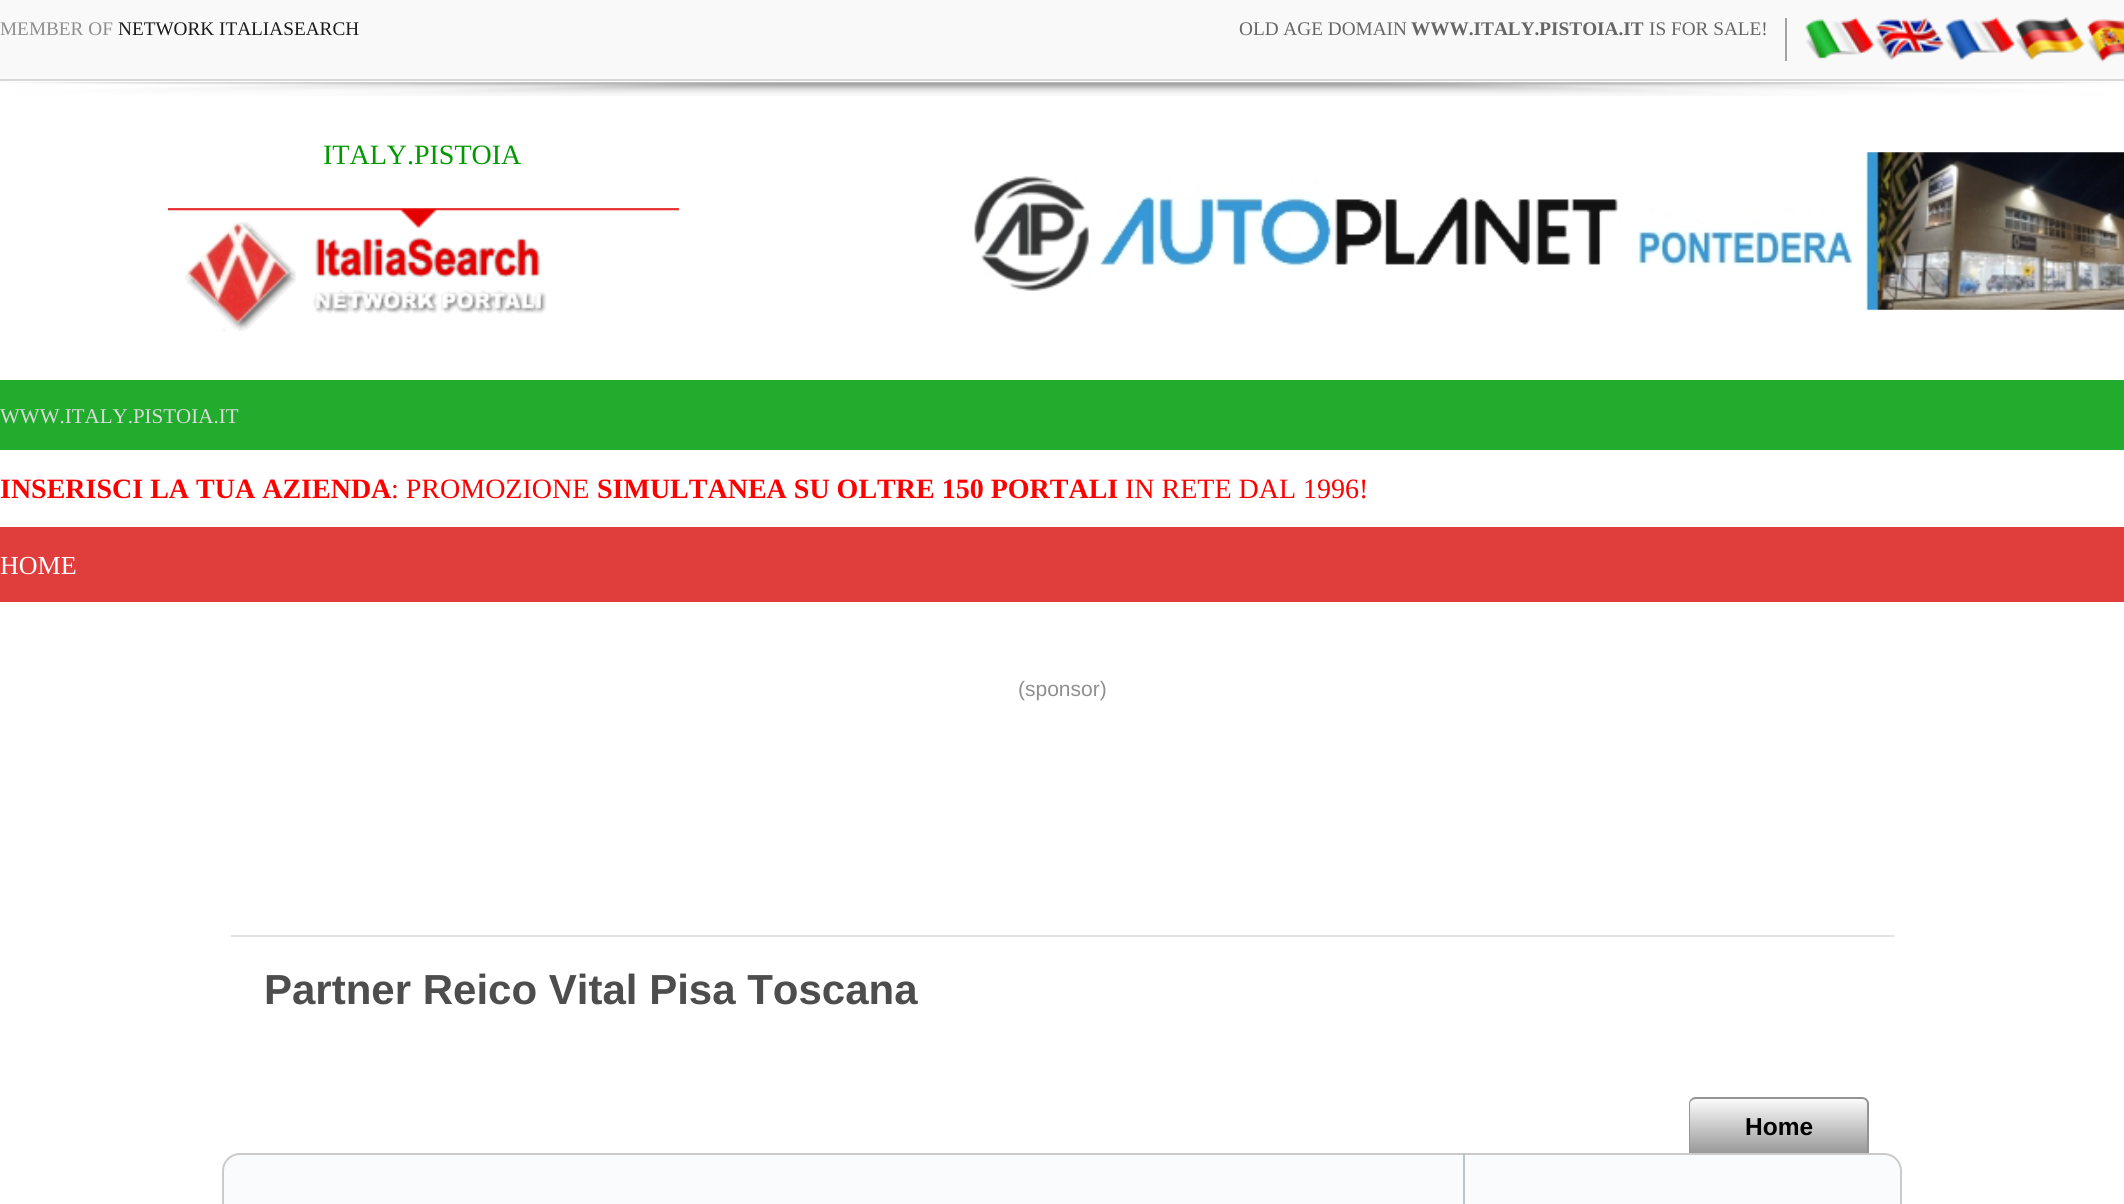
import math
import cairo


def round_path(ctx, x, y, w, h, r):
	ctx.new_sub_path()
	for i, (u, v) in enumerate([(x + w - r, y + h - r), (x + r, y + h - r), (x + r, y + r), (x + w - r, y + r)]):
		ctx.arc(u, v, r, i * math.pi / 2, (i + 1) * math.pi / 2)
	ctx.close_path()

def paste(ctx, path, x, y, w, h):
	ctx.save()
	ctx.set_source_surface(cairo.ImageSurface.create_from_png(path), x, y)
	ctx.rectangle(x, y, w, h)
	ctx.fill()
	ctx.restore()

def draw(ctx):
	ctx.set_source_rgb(1, 1, 1)
	ctx.paint()
	ctx.set_source_rgb(0.973, 0.973, 0.973)
	ctx.rectangle(0, 0, 2124, 79)
	ctx.fill()
	ctx.set_source_rgb(0.847, 0.847, 0.847)
	ctx.rectangle(0, 79, 2124, 2)
	ctx.fill()
	ctx.select_font_face('Liberation Serif')
	ctx.set_font_size(19.25)
	ctx.set_source_rgb(0.561, 0.561, 0.561)
	ctx.move_to(0, 35)
	ctx.show_text('MEMBER OF')
	ctx.set_source_rgb(0.106, 0.106, 0.106)
	ctx.move_to(118, 35)
	ctx.show_text('NETWORK ITALIASEARCH')
	ctx.set_source_rgb(0.4, 0.4, 0.4)
	ctx.move_to(1239, 35)
	ctx.show_text('OLD AGE DOMAIN')
	ctx.select_font_face('Liberation Serif', cairo.FONT_SLANT_NORMAL, cairo.FONT_WEIGHT_BOLD)
	ctx.move_to(1411, 35)
	ctx.show_text('WWW.ITALY.PISTOIA.IT')
	ctx.select_font_face('Liberation Serif')
	ctx.move_to(1649, 35)
	ctx.show_text('IS FOR SALE!')
	ctx.set_source_rgb(0.639, 0.639, 0.639)
	ctx.rectangle(1785, 18, 2, 43)
	ctx.fill()
	paste(ctx, 'media/1.png', 1805, 17, 70, 42)
	paste(ctx, 'media/2.png', 1875, 17, 70, 43)
	paste(ctx, 'media/3.png', 1945, 17, 70, 43)
	paste(ctx, 'media/4.png', 2015, 17, 70, 43)
	paste(ctx, 'media/5.png', 2087, 19, 37, 43)
	paste(ctx, 'media/6.png', 7, 82, 2107, 14)
	ctx.set_font_size(28)
	ctx.set_source_rgb(0, 0.6, 0)
	ctx.move_to(323, 164)
	ctx.show_text('ITALY.PISTOIA')
	paste(ctx, 'media/7.png', 168, 208, 511, 123)
	paste(ctx, 'media/8.png', 974, 152, 1150, 158)
	ctx.set_source_rgb(0.129, 0.675, 0.176)
	ctx.rectangle(0, 380, 2124, 70)
	ctx.fill()
	ctx.set_font_size(21)
	ctx.set_source_rgb(0.855, 0.855, 0.855)
	ctx.move_to(0, 423)
	ctx.show_text('WWW.ITALY.PISTOIA.IT')
	ctx.select_font_face('Liberation Serif', cairo.FONT_SLANT_NORMAL, cairo.FONT_WEIGHT_BOLD)
	ctx.set_font_size(28)
	ctx.set_source_rgb(1, 0, 0)
	ctx.move_to(0, 498)
	ctx.show_text('INSERISCI LA TUA AZIENDA')
	ctx.select_font_face('Liberation Serif')
	ctx.move_to(391, 498)
	ctx.show_text(': PROMOZIONE')
	ctx.select_font_face('Liberation Serif', cairo.FONT_SLANT_NORMAL, cairo.FONT_WEIGHT_BOLD)
	ctx.move_to(597, 498)
	ctx.show_text('SIMULTANEA SU OLTRE 150 PORTALI')
	ctx.select_font_face('Liberation Serif')
	ctx.move_to(1125, 498)
	ctx.show_text('IN RETE DAL 1996!')
	ctx.set_source_rgb(0.878, 0.239, 0.239)
	ctx.rectangle(0, 527, 2124, 75)
	ctx.fill()
	ctx.set_font_size(26)
	ctx.set_source_rgb(1, 1, 1)
	ctx.move_to(0, 574)
	ctx.show_text('HOME')
	ctx.select_font_face('Liberation Sans')
	ctx.set_font_size(21)
	ctx.set_source_rgb(0.561, 0.561, 0.561)
	ctx.move_to(1018, 696)
	ctx.show_text('(sponsor)')
	ctx.set_source_rgb(0.878, 0.878, 0.878)
	ctx.rectangle(231, 935, 1663, 2)
	ctx.fill()
	ctx.select_font_face('Liberation Sans', cairo.FONT_SLANT_NORMAL, cairo.FONT_WEIGHT_BOLD)
	ctx.set_font_size(42)
	ctx.set_source_rgb(0.302, 0.302, 0.302)
	ctx.move_to(264, 1004)
	ctx.show_text('Partner Reico Vital Pisa Toscana')
	gradient = cairo.LinearGradient(1779, 1097, 1779, 1153)
	gradient.add_color_stop_rgba(0, 1, 1, 1, 1)
	gradient.add_color_stop_rgba(1, 0.6, 0.6, 0.6, 1)
	ctx.set_source(gradient)
	ctx.new_path()
	ctx.move_to(1696, 1097)
	ctx.line_to(1862, 1097)
	ctx.curve_to(1866, 1097, 1869, 1100, 1869, 1104)
	ctx.line_to(1869, 1153)
	ctx.line_to(1689, 1153)
	ctx.line_to(1689, 1104)
	ctx.curve_to(1689, 1100, 1692, 1097, 1696, 1097)
	ctx.close_path()
	ctx.fill()
	ctx.set_source_rgb(0.58, 0.58, 0.58)
	ctx.set_fill_rule(cairo.FILL_RULE_EVEN_ODD)
	ctx.new_path()
	ctx.move_to(1696, 1097)
	ctx.line_to(1862, 1097)
	ctx.curve_to(1866, 1097, 1869, 1100, 1869, 1104)
	ctx.line_to(1869, 1153)
	ctx.line_to(1689, 1153)
	ctx.line_to(1689, 1104)
	ctx.curve_to(1689, 1100, 1692, 1097, 1696, 1097)
	ctx.close_path()
	ctx.move_to(1696, 1099)
	ctx.line_to(1862, 1099)
	ctx.curve_to(1865, 1099, 1867, 1101, 1867, 1104)
	ctx.line_to(1867, 1153)
	ctx.line_to(1690, 1153)
	ctx.line_to(1690, 1104)
	ctx.curve_to(1690, 1101, 1693, 1099, 1696, 1099)
	ctx.close_path()
	ctx.fill()
	ctx.set_font_size(24.5)
	ctx.set_source_rgb(0, 0, 0)
	ctx.move_to(1745, 1135)
	ctx.show_text('Home')
	ctx.set_source_rgb(0.98, 0.984, 0.988)
	round_path(ctx, 223, 1154, 1678, 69, 17)
	ctx.fill_preserve()
	ctx.set_source_rgb(0.796, 0.796, 0.796)
	ctx.stroke()
	ctx.set_source_rgb(0.733, 0.773, 0.788)
	ctx.rectangle(1463, 1153, 2, 51)
	ctx.fill()


surface = cairo.ImageSurface(cairo.FORMAT_RGB24, 2124, 1204)
ctx = cairo.Context(surface)
options = cairo.FontOptions()
options.set_hint_metrics(cairo.HINT_METRICS_OFF)
options.set_hint_style(cairo.HINT_STYLE_NONE)
ctx.set_font_options(options)
ctx.set_miter_limit(4)
draw(ctx)
surface.write_to_png('image.png')
